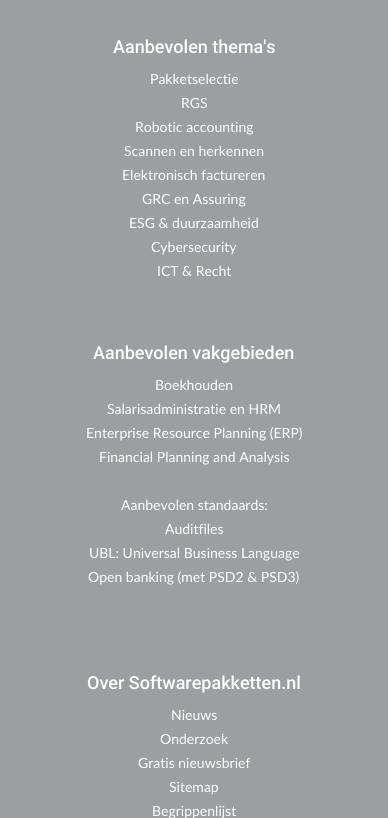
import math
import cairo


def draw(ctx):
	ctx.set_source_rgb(0.612, 0.62, 0.624)
	ctx.paint()
	ctx.select_font_face('Roboto Medium')
	ctx.set_font_size(18)
	ctx.set_source_rgb(1, 1, 1)
	ctx.move_to(113, 53)
	ctx.show_text('Aanbevolen thema\'s')
	ctx.select_font_face('Lato')
	ctx.set_font_size(14)
	for x, y, s in [
		(150, 84, 'Pakketselectie'),
		(181, 108, 'RGS'),
		(135, 132, 'Robotic accounting'),
		(124, 156, 'Scannen en herkennen'),
		(122, 180, 'Elektronisch factureren'),
		(142, 204, 'GRC en Assuring'),
		(129, 228, 'ESG & duurzaamheid'),
		(151, 252, 'Cybersecurity'),
		(157, 276, 'ICT & Recht'),
	]:
		ctx.move_to(x, y)
		ctx.show_text(s)
	ctx.select_font_face('Roboto Medium')
	ctx.set_font_size(18)
	ctx.move_to(93, 359)
	ctx.show_text('Aanbevolen vakgebieden')
	ctx.select_font_face('Lato')
	ctx.set_font_size(14)
	for x, y, s in [
		(155, 390, 'Boekhouden'),
		(107, 414, 'Salarisadministratie en HRM'),
		(86, 438, 'Enterprise Resource Planning (ERP)'),
		(99, 462, 'Financial Planning and Analysis'),
		(121, 510, 'Aanbevolen standaards:'),
		(165, 534, 'Auditfiles'),
		(89, 558, 'UBL: Universal Business Language'),
		(88, 582, 'Open banking (met PSD2 & PSD3)'),
	]:
		ctx.move_to(x, y)
		ctx.show_text(s)
	ctx.select_font_face('Roboto Medium')
	ctx.set_font_size(18)
	ctx.move_to(87, 689)
	ctx.show_text('Over Softwarepakketten.nl')
	ctx.select_font_face('Lato')
	ctx.set_font_size(14)
	for x, y, s in [
		(171, 720, 'Nieuws'),
		(160, 744, 'Onderzoek'),
		(138, 768, 'Gratis nieuwsbrief'),
		(169, 792, 'Sitemap'),
		(152, 816, 'Begrippenlijst'),
	]:
		ctx.move_to(x, y)
		ctx.show_text(s)


surface = cairo.ImageSurface(cairo.FORMAT_RGB24, 388, 818)
ctx = cairo.Context(surface)
options = cairo.FontOptions()
options.set_hint_metrics(cairo.HINT_METRICS_OFF)
options.set_hint_style(cairo.HINT_STYLE_NONE)
ctx.set_font_options(options)
ctx.set_miter_limit(4)
draw(ctx)
surface.write_to_png('image.png')
